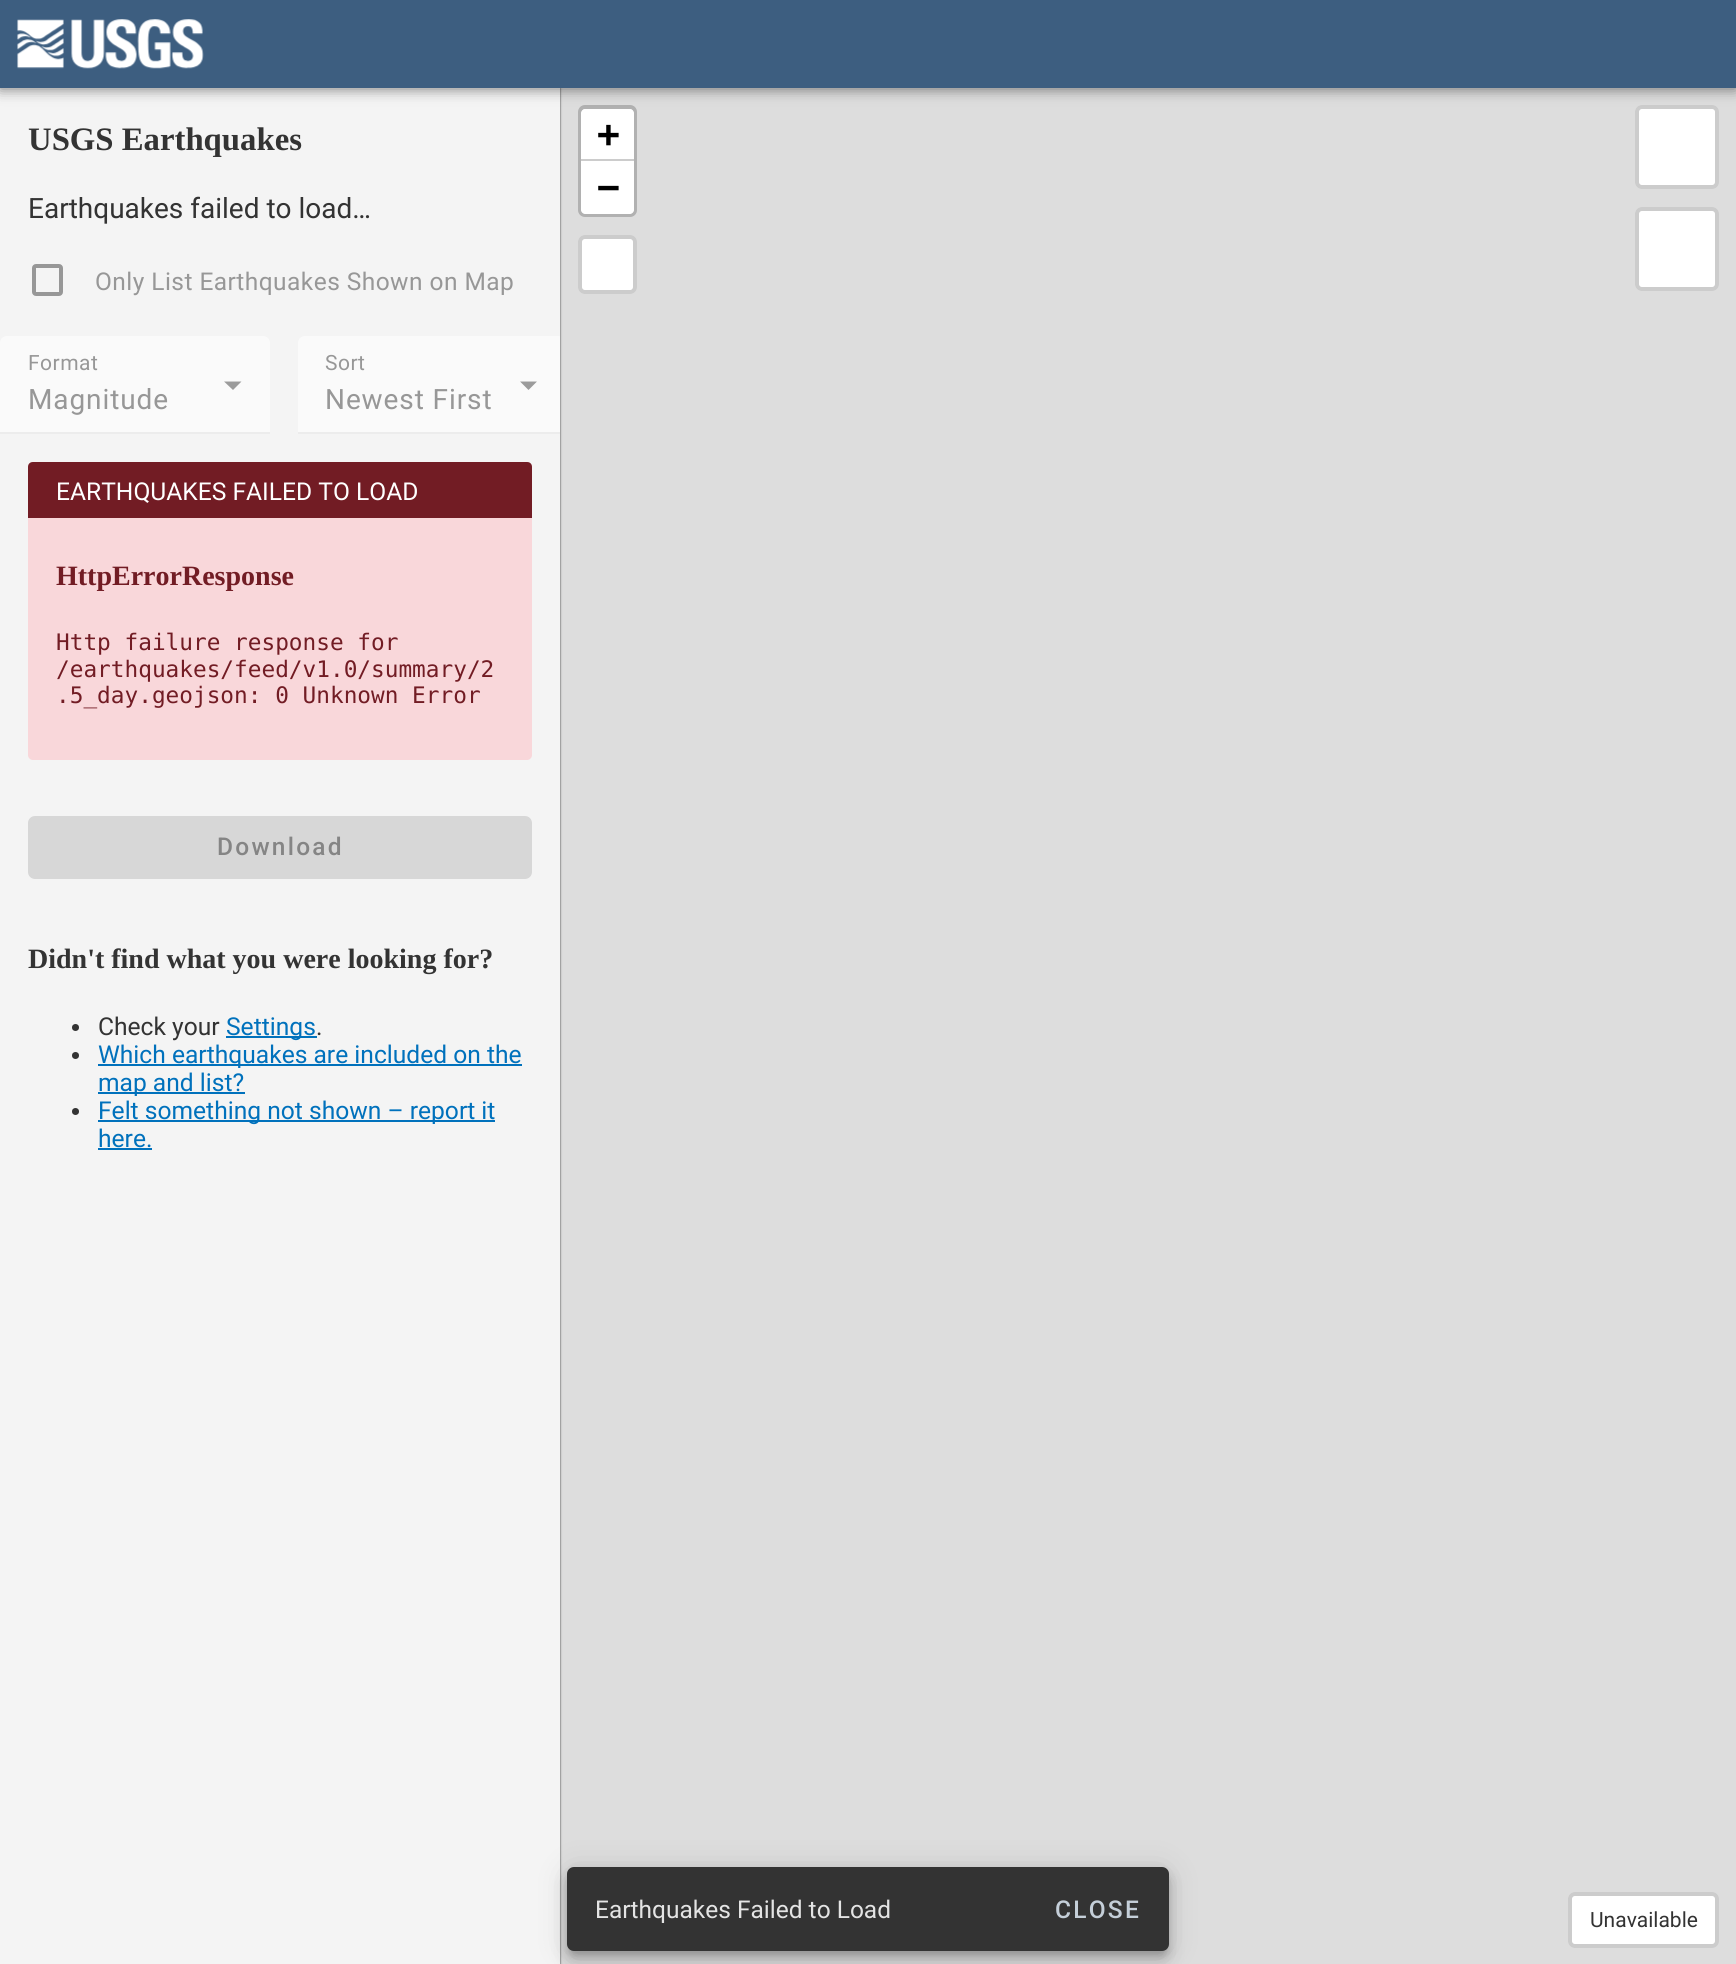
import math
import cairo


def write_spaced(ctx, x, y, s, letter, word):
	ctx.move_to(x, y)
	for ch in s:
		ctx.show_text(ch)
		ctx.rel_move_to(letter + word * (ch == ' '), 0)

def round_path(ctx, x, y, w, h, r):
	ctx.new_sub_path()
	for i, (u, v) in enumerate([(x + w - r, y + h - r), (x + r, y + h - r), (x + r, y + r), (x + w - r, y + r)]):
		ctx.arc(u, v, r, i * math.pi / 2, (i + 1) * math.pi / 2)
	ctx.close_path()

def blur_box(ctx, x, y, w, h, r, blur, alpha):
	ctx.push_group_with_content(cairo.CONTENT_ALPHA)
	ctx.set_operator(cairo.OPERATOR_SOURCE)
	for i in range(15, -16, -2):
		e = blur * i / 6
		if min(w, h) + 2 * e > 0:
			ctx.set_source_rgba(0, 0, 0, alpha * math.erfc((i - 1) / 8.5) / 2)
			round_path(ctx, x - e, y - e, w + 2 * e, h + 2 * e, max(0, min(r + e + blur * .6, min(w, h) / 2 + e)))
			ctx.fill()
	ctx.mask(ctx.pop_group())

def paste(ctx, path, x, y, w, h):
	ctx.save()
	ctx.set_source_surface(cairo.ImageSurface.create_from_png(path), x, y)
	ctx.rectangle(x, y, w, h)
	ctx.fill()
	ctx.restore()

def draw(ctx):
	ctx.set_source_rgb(0.867, 0.867, 0.867)
	ctx.paint()
	ctx.set_source_rgb(0, 0, 0)
	blur_box(ctx, 0, 88, 560, 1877, 0, 1, 0.8)
	ctx.set_source_rgb(0.957, 0.957, 0.957)
	ctx.rectangle(0, 88, 560, 1876)
	ctx.fill()
	round_path(ctx, 580, 107, 55, 108, 5)
	ctx.set_source_rgba(0, 0, 0, 0.2)
	ctx.set_line_width(4)
	ctx.stroke()
	ctx.set_source_rgb(1, 1, 1)
	ctx.new_path()
	ctx.move_to(585, 109)
	ctx.line_to(630, 109)
	ctx.curve_to(632, 109, 634, 111, 634, 113)
	ctx.line_to(634, 161)
	ctx.line_to(581, 161)
	ctx.line_to(581, 113)
	ctx.curve_to(581, 111, 583, 109, 585, 109)
	ctx.close_path()
	ctx.fill()
	round_path(ctx, 1635, 105, 84, 84, 7)
	ctx.fill()
	round_path(ctx, 1637, 107, 80, 80, 5)
	ctx.set_source_rgba(0, 0, 0, 0.2)
	ctx.stroke()
	ctx.set_source_rgb(0, 0, 0)
	blur_box(ctx, 0, 2, 1736, 87, 0, 7, 0.5)
	ctx.set_source_rgb(0.239, 0.369, 0.502)
	ctx.rectangle(0, 0, 1736, 88)
	ctx.fill()
	paste(ctx, 'media/1.png', 17, 19, 187, 50)
	ctx.select_font_face('Liberation Serif', cairo.FONT_SLANT_NORMAL, cairo.FONT_WEIGHT_BOLD)
	ctx.set_font_size(32.75)
	ctx.set_source_rgb(0.2, 0.2, 0.2)
	ctx.move_to(28, 150)
	ctx.show_text('USGS Earthquakes')
	ctx.select_font_face('Roboto')
	ctx.set_font_size(28)
	ctx.move_to(28, 218)
	ctx.show_text('Earthquakes failed to load…')
	round_path(ctx, 34, 266, 27, 28, 2)
	ctx.set_source_rgb(0.592, 0.592, 0.592)
	ctx.stroke()
	ctx.set_font_size(24.5)
	write_spaced(ctx, 95, 290, 'Only List Earthquakes Shown on Map', 0.45, 0)
	ctx.set_source_rgb(0.98, 0.98, 0.98)
	ctx.new_path()
	ctx.move_to(7, 336)
	ctx.line_to(263, 336)
	ctx.curve_to(267, 336, 270, 339, 270, 343)
	ctx.line_to(270, 434)
	ctx.line_to(0, 434)
	ctx.line_to(0, 343)
	ctx.curve_to(0, 339, 3, 336, 7, 336)
	ctx.close_path()
	ctx.fill()
	ctx.set_font_size(21)
	ctx.set_source_rgb(0.592, 0.592, 0.592)
	write_spaced(ctx, 28, 370, 'Format', 0.5, 0)
	ctx.set_source_rgb(0.608, 0.608, 0.608)
	ctx.new_path()
	ctx.move_to(224, 381.5)
	ctx.line_to(233, 390)
	ctx.line_to(241.5, 381.5)
	ctx.close_path()
	ctx.fill()
	ctx.set_font_size(28)
	ctx.set_source_rgb(0.592, 0.592, 0.592)
	write_spaced(ctx, 28, 409, 'Magnitude', 0.9, 0)
	ctx.set_source_rgb(0.922, 0.922, 0.922)
	ctx.rectangle(0, 432, 270, 2)
	ctx.fill()
	ctx.save()
	ctx.rectangle(0, 88, 560, 1088)
	ctx.clip()
	ctx.set_source_rgb(0.98, 0.98, 0.98)
	ctx.new_path()
	ctx.move_to(305, 336)
	ctx.line_to(558, 336)
	ctx.curve_to(562, 336, 565, 339, 565, 343)
	ctx.line_to(565, 434)
	ctx.line_to(298, 434)
	ctx.line_to(298, 343)
	ctx.curve_to(298, 339, 301, 336, 305, 336)
	ctx.close_path()
	ctx.fill()
	ctx.restore()
	ctx.set_font_size(21)
	ctx.set_source_rgb(0.592, 0.592, 0.592)
	write_spaced(ctx, 325, 370, 'Sort', 0.5, 0)
	ctx.set_source_rgb(0.608, 0.608, 0.608)
	ctx.new_path()
	ctx.move_to(520, 381.5)
	ctx.line_to(528.5, 390)
	ctx.line_to(537, 381.5)
	ctx.close_path()
	ctx.fill()
	ctx.set_font_size(28)
	ctx.set_source_rgb(0.592, 0.592, 0.592)
	write_spaced(ctx, 325, 409, 'Newest First', 0.9, 0)
	ctx.set_source_rgb(0.922, 0.922, 0.922)
	ctx.rectangle(298, 432, 262, 2)
	ctx.fill()
	ctx.set_source_rgb(0.973, 0.843, 0.855)
	round_path(ctx, 28, 462, 504, 298, 5)
	ctx.fill()
	ctx.set_source_rgb(0.447, 0.11, 0.141)
	ctx.new_path()
	ctx.move_to(33, 462)
	ctx.line_to(527, 462)
	ctx.curve_to(530, 462, 532, 464, 532, 467)
	ctx.line_to(532, 518)
	ctx.line_to(28, 518)
	ctx.line_to(28, 467)
	ctx.curve_to(28, 464, 30, 462, 33, 462)
	ctx.close_path()
	ctx.fill()
	ctx.set_font_size(24.6)
	ctx.set_source_rgb(1, 1, 1)
	ctx.move_to(56, 500)
	ctx.show_text('EARTHQUAKES FAILED TO LOAD')
	ctx.select_font_face('Liberation Serif', cairo.FONT_SLANT_NORMAL, cairo.FONT_WEIGHT_BOLD)
	ctx.set_font_size(28)
	ctx.set_source_rgb(0.447, 0.11, 0.141)
	ctx.move_to(56, 585)
	ctx.show_text('HttpErrorResponse')
	ctx.select_font_face('DejaVu Sans Mono')
	ctx.set_font_size(22.75)
	for x, y, s in [
		(56, 650, 'Http failure response for'),
		(56, 677, '/earthquakes/feed/v1.0/summary/2'),
		(56, 703, '.5_day.geojson: 0 Unknown Error'),
	]:
		ctx.move_to(x, y)
		ctx.show_text(s)
	ctx.set_source_rgb(0.843, 0.843, 0.843)
	round_path(ctx, 28, 816, 504, 63, 7)
	ctx.fill()
	ctx.select_font_face('Roboto Medium')
	ctx.set_font_size(24.5)
	ctx.set_source_rgb(0.522, 0.522, 0.522)
	write_spaced(ctx, 217, 855, 'Download', 2.25, 0)
	ctx.select_font_face('Liberation Serif', cairo.FONT_SLANT_NORMAL, cairo.FONT_WEIGHT_BOLD)
	ctx.set_font_size(28)
	ctx.set_source_rgb(0.2, 0.2, 0.2)
	ctx.move_to(28, 968)
	ctx.show_text('Didn\'t find what you were looking for?')
	ctx.new_path()
	ctx.arc(75.5, 1027.5, 3.5, 0, 2 * math.pi)
	ctx.fill()
	ctx.select_font_face('Roboto')
	ctx.set_font_size(24.6)
	ctx.move_to(98, 1035)
	ctx.show_text('Check your')
	ctx.set_source_rgb(0, 0.443, 0.737)
	ctx.rectangle(226, 1036, 91, 2)
	ctx.fill()
	ctx.move_to(226, 1035)
	ctx.show_text('Settings')
	ctx.set_source_rgb(0.2, 0.2, 0.2)
	ctx.move_to(316, 1035)
	ctx.show_text('.')
	ctx.new_path()
	ctx.arc(75.5, 1055.5, 3.5, 0, 2 * math.pi)
	ctx.fill()
	ctx.set_source_rgb(0, 0.443, 0.737)
	ctx.rectangle(98, 1064, 424, 2)
	ctx.fill()
	ctx.move_to(98, 1063)
	ctx.show_text('Which earthquakes are included on the')
	ctx.rectangle(98, 1092, 147, 2)
	ctx.fill()
	ctx.move_to(98, 1091)
	ctx.show_text('map and list?')
	ctx.set_source_rgb(0.2, 0.2, 0.2)
	ctx.new_path()
	ctx.arc(75.5, 1111.5, 3.5, 0, 2 * math.pi)
	ctx.fill()
	ctx.set_source_rgb(0, 0.443, 0.737)
	ctx.rectangle(98, 1120, 397, 2)
	ctx.fill()
	ctx.move_to(98, 1119)
	ctx.show_text('Felt something not shown – report it')
	ctx.move_to(98, 1147)
	ctx.show_text('here.')
	ctx.rectangle(98, 1148, 54, 2)
	ctx.fill()
	ctx.set_source_rgb(0.8, 0.8, 0.8)
	ctx.rectangle(581, 159, 53, 2)
	ctx.fill()
	ctx.select_font_face('DejaVu Sans Mono', cairo.FONT_SLANT_NORMAL, cairo.FONT_WEIGHT_BOLD)
	ctx.set_font_size(38)
	ctx.set_source_rgb(0, 0, 0)
	ctx.move_to(597, 147)
	ctx.show_text('+')
	ctx.set_source_rgb(1, 1, 1)
	ctx.new_path()
	ctx.move_to(581, 161)
	ctx.line_to(634, 161)
	ctx.line_to(634, 210)
	ctx.curve_to(634, 212, 632, 214, 630, 214)
	ctx.line_to(585, 214)
	ctx.curve_to(583, 214, 581, 212, 581, 210)
	ctx.close_path()
	ctx.fill()
	ctx.set_source_rgb(0, 0, 0)
	ctx.move_to(597, 200)
	ctx.show_text('−')
	ctx.set_source_rgb(1, 1, 1)
	round_path(ctx, 578, 235, 59, 59, 7)
	ctx.fill()
	round_path(ctx, 580, 237, 55, 55, 5)
	ctx.set_source_rgba(0, 0, 0, 0.2)
	ctx.stroke()
	ctx.set_source_rgb(1, 1, 1)
	round_path(ctx, 1635, 207, 84, 84, 7)
	ctx.fill()
	round_path(ctx, 1637, 209, 80, 80, 5)
	ctx.set_source_rgba(0, 0, 0, 0.2)
	ctx.stroke()
	ctx.set_source_rgb(1, 1, 1)
	round_path(ctx, 1568, 1892, 151, 56, 7)
	ctx.fill()
	round_path(ctx, 1570, 1894, 147, 52, 5)
	ctx.set_source_rgba(0, 0, 0, 0.2)
	ctx.stroke()
	ctx.select_font_face('Roboto')
	ctx.set_font_size(21)
	ctx.set_source_rgb(0.2, 0.2, 0.2)
	ctx.move_to(1590, 1927)
	ctx.show_text('Unavailable')
	ctx.set_source_rgb(0, 0, 0)
	blur_box(ctx, 567, 1869, 602, 84, 7, 16, 0.12)
	blur_box(ctx, 567, 1878, 602, 84, 7, 9, 0.14)
	blur_box(ctx, 569, 1874, 598, 81, 5, 4.5, 0.2)
	ctx.set_source_rgb(0.2, 0.2, 0.2)
	round_path(ctx, 567, 1867, 602, 84, 7)
	ctx.fill()
	ctx.set_font_size(24.5)
	ctx.set_source_rgb(0.894, 0.894, 0.894)
	ctx.move_to(595, 1918)
	ctx.show_text('Earthquakes Failed to Load')
	ctx.select_font_face('Roboto Medium')
	ctx.set_source_rgb(0.773, 0.812, 0.851)
	write_spaced(ctx, 1055, 1918, 'CLOSE', 2.25, 0)


surface = cairo.ImageSurface(cairo.FORMAT_RGB24, 1736, 1964)
ctx = cairo.Context(surface)
options = cairo.FontOptions()
options.set_hint_metrics(cairo.HINT_METRICS_OFF)
options.set_hint_style(cairo.HINT_STYLE_NONE)
ctx.set_font_options(options)
ctx.set_miter_limit(4)
draw(ctx)
surface.write_to_png('image.png')
